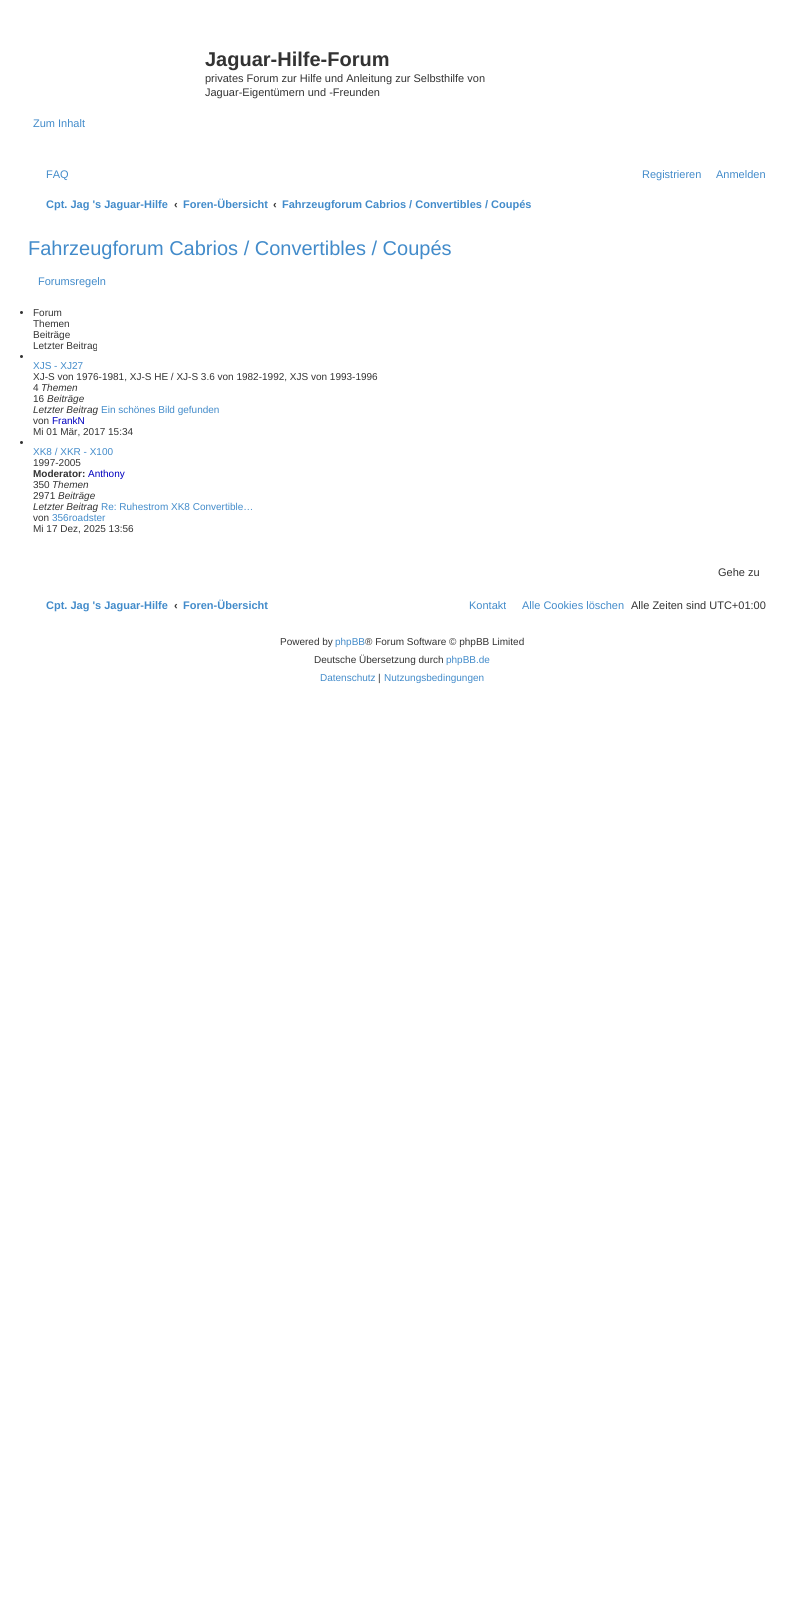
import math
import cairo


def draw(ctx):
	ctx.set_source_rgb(1, 1, 1)
	ctx.paint()
	ctx.select_font_face('Liberation Sans', cairo.FONT_SLANT_NORMAL, cairo.FONT_WEIGHT_BOLD)
	ctx.set_font_size(20)
	ctx.set_source_rgb(0.2, 0.2, 0.2)
	ctx.move_to(205, 66)
	ctx.show_text('Jaguar-Hilfe-Forum')
	ctx.select_font_face('Liberation Sans')
	ctx.set_font_size(11)
	ctx.move_to(205, 82)
	ctx.show_text('privates Forum zur Hilfe und Anleitung zur Selbsthilfe von')
	ctx.move_to(205, 96)
	ctx.show_text('Jaguar-Eigentümern und -Freunden')
	ctx.set_source_rgb(0.259, 0.545, 0.792)
	for x, y, s in [
		(33, 127, 'Zum Inhalt'),
		(46, 178, 'FAQ'),
		(642, 178, 'Registrieren'),
		(716, 178, 'Anmelden'),
	]:
		ctx.move_to(x, y)
		ctx.show_text(s)
	ctx.select_font_face('Liberation Sans', cairo.FONT_SLANT_NORMAL, cairo.FONT_WEIGHT_BOLD)
	ctx.move_to(46, 208)
	ctx.show_text('Cpt. Jag \'s Jaguar-Hilfe')
	ctx.set_source_rgb(0.2, 0.2, 0.2)
	ctx.move_to(174, 208)
	ctx.show_text('‹')
	ctx.set_source_rgb(0.259, 0.545, 0.792)
	ctx.move_to(183, 208)
	ctx.show_text('Foren-Übersicht')
	ctx.set_source_rgb(0.2, 0.2, 0.2)
	ctx.move_to(273, 208)
	ctx.show_text('‹')
	ctx.set_source_rgb(0.259, 0.545, 0.792)
	ctx.move_to(282, 208)
	ctx.show_text('Fahrzeugforum Cabrios / Convertibles / Coupés')
	ctx.select_font_face('Liberation Sans')
	ctx.set_font_size(20)
	ctx.move_to(28, 255)
	ctx.show_text('Fahrzeugforum Cabrios / Convertibles / Coupés')
	ctx.set_font_size(11)
	ctx.move_to(38, 285)
	ctx.show_text('Forumsregeln')
	ctx.set_source_rgb(0.2, 0.2, 0.2)
	ctx.new_path()
	ctx.arc(21.5, 312.5, 1.5, 0, 2 * math.pi)
	ctx.fill()
	ctx.set_font_size(10)
	for x, y, s in [
		(33, 316, 'Forum'),
		(33, 327, 'Themen'),
		(33, 338, 'Beiträge'),
		(33, 349, 'Letzter Beitrag'),
	]:
		ctx.move_to(x, y)
		ctx.show_text(s)
	ctx.new_path()
	ctx.arc(21.5, 356.5, 1.5, 0, 2 * math.pi)
	ctx.fill()
	ctx.set_source_rgb(0.259, 0.545, 0.792)
	ctx.move_to(33, 369)
	ctx.show_text('XJS - XJ27')
	ctx.set_source_rgb(0.2, 0.2, 0.2)
	ctx.move_to(33, 380)
	ctx.show_text('XJ-S von 1976-1981, XJ-S HE / XJ-S 3.6 von 1982-1992, XJS von 1993-1996')
	ctx.move_to(33, 391)
	ctx.show_text('4')
	ctx.select_font_face('Liberation Sans', cairo.FONT_SLANT_ITALIC)
	ctx.move_to(41, 391)
	ctx.show_text('Themen')
	ctx.select_font_face('Liberation Sans')
	ctx.move_to(33, 402)
	ctx.show_text('16')
	ctx.select_font_face('Liberation Sans', cairo.FONT_SLANT_ITALIC)
	ctx.move_to(47, 402)
	ctx.show_text('Beiträge')
	ctx.move_to(33, 413)
	ctx.show_text('Letzter Beitrag')
	ctx.select_font_face('Liberation Sans')
	ctx.set_source_rgb(0.259, 0.545, 0.792)
	ctx.move_to(101, 413)
	ctx.show_text('Ein schönes Bild gefunden')
	ctx.set_source_rgb(0.2, 0.2, 0.2)
	ctx.move_to(33, 424)
	ctx.show_text('von')
	ctx.set_source_rgb(0, 0, 0.749)
	ctx.move_to(52, 424)
	ctx.show_text('FrankN')
	ctx.set_source_rgb(0.2, 0.2, 0.2)
	ctx.move_to(33, 435)
	ctx.show_text('Mi 01 Mär, 2017 15:34')
	ctx.new_path()
	ctx.arc(21.5, 442.5, 1.5, 0, 2 * math.pi)
	ctx.fill()
	ctx.set_source_rgb(0.259, 0.545, 0.792)
	ctx.move_to(33, 455)
	ctx.show_text('XK8 / XKR - X100')
	ctx.set_source_rgb(0.2, 0.2, 0.2)
	ctx.move_to(33, 466)
	ctx.show_text('1997-2005')
	ctx.select_font_face('Liberation Sans', cairo.FONT_SLANT_NORMAL, cairo.FONT_WEIGHT_BOLD)
	ctx.move_to(33, 477)
	ctx.show_text('Moderator:')
	ctx.select_font_face('Liberation Sans')
	ctx.set_source_rgb(0, 0, 0.749)
	ctx.move_to(88, 477)
	ctx.show_text('Anthony')
	ctx.set_source_rgb(0.2, 0.2, 0.2)
	ctx.move_to(33, 488)
	ctx.show_text('350')
	ctx.select_font_face('Liberation Sans', cairo.FONT_SLANT_ITALIC)
	ctx.move_to(52, 488)
	ctx.show_text('Themen')
	ctx.select_font_face('Liberation Sans')
	ctx.move_to(33, 499)
	ctx.show_text('2971')
	ctx.select_font_face('Liberation Sans', cairo.FONT_SLANT_ITALIC)
	ctx.move_to(58, 499)
	ctx.show_text('Beiträge')
	ctx.move_to(33, 510)
	ctx.show_text('Letzter Beitrag')
	ctx.select_font_face('Liberation Sans')
	ctx.set_source_rgb(0.259, 0.545, 0.792)
	ctx.move_to(101, 510)
	ctx.show_text('Re: Ruhestrom XK8 Convertible…')
	ctx.set_source_rgb(0.2, 0.2, 0.2)
	ctx.move_to(33, 521)
	ctx.show_text('von')
	ctx.set_source_rgb(0.259, 0.545, 0.792)
	ctx.move_to(52, 521)
	ctx.show_text('356roadster')
	ctx.set_source_rgb(0.2, 0.2, 0.2)
	ctx.move_to(33, 532)
	ctx.show_text('Mi 17 Dez, 2025 13:56')
	ctx.set_font_size(11)
	ctx.move_to(718, 576)
	ctx.show_text('Gehe zu')
	ctx.select_font_face('Liberation Sans', cairo.FONT_SLANT_NORMAL, cairo.FONT_WEIGHT_BOLD)
	ctx.set_source_rgb(0.259, 0.545, 0.792)
	ctx.move_to(46, 609)
	ctx.show_text('Cpt. Jag \'s Jaguar-Hilfe')
	ctx.set_source_rgb(0.2, 0.2, 0.2)
	ctx.move_to(174, 609)
	ctx.show_text('‹')
	ctx.set_source_rgb(0.259, 0.545, 0.792)
	ctx.move_to(183, 609)
	ctx.show_text('Foren-Übersicht')
	ctx.select_font_face('Liberation Sans')
	ctx.move_to(469, 609)
	ctx.show_text('Kontakt')
	ctx.move_to(522, 609)
	ctx.show_text('Alle Cookies löschen')
	ctx.set_source_rgb(0.2, 0.2, 0.2)
	ctx.move_to(631, 609)
	ctx.show_text('Alle Zeiten sind UTC+01:00')
	ctx.set_font_size(10)
	ctx.move_to(280, 645)
	ctx.show_text('Powered by')
	ctx.set_source_rgb(0.259, 0.545, 0.792)
	ctx.move_to(335, 645)
	ctx.show_text('phpBB')
	ctx.set_source_rgb(0.2, 0.2, 0.2)
	ctx.move_to(365, 645)
	ctx.show_text('® Forum Software © phpBB Limited')
	ctx.move_to(314, 663)
	ctx.show_text('Deutsche Übersetzung durch')
	ctx.set_source_rgb(0.259, 0.545, 0.792)
	ctx.move_to(446, 663)
	ctx.show_text('phpBB.de')
	ctx.move_to(320, 681)
	ctx.show_text('Datenschutz')
	ctx.set_source_rgb(0.2, 0.2, 0.2)
	ctx.move_to(378, 681)
	ctx.show_text('|')
	ctx.set_source_rgb(0.259, 0.545, 0.792)
	ctx.move_to(384, 681)
	ctx.show_text('Nutzungsbedingungen')


surface = cairo.ImageSurface(cairo.FORMAT_RGB24, 804, 1599)
ctx = cairo.Context(surface)
options = cairo.FontOptions()
options.set_hint_metrics(cairo.HINT_METRICS_OFF)
options.set_hint_style(cairo.HINT_STYLE_NONE)
ctx.set_font_options(options)
ctx.set_miter_limit(4)
draw(ctx)
surface.write_to_png('image.png')
